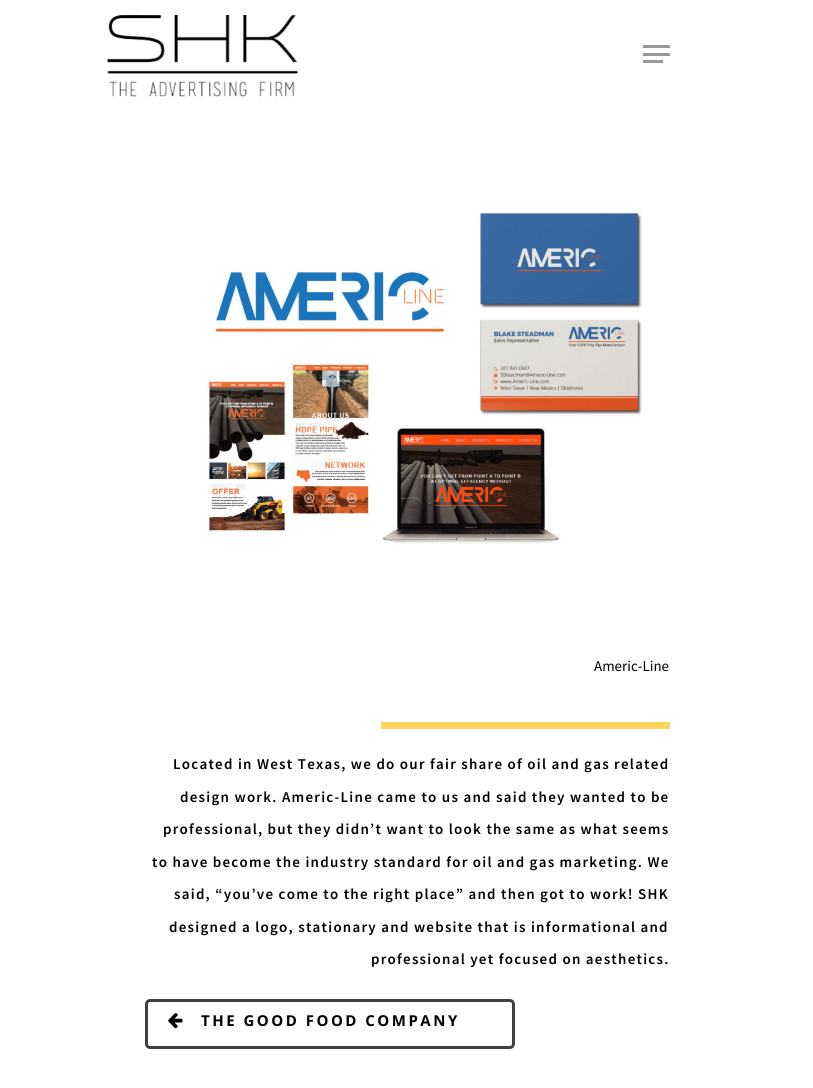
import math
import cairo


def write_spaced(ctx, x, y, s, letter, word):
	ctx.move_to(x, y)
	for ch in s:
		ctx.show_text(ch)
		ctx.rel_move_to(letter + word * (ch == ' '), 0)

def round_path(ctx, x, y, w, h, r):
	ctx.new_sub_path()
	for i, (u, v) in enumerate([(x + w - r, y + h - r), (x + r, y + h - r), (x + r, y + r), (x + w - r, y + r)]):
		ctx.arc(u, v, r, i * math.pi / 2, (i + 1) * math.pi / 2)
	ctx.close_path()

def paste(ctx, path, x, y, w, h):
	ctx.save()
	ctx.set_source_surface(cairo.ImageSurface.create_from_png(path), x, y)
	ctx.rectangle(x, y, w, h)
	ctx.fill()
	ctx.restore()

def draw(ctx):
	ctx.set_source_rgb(1, 1, 1)
	ctx.paint()
	paste(ctx, 'media/1.png', 107, 15, 191, 82)
	ctx.set_source_rgb(0.6, 0.6, 0.6)
	ctx.rectangle(643, 45, 27, 3)
	ctx.rectangle(643, 60, 20, 3)
	ctx.rectangle(643, 53, 27, 3)
	ctx.fill()
	paste(ctx, 'media/2.png', 207, 213, 435, 331)
	ctx.select_font_face('Source Sans Pro')
	ctx.set_font_size(15)
	ctx.set_source_rgb(0, 0, 0)
	ctx.move_to(594, 671)
	ctx.show_text('Americ-Line')
	ctx.set_source_rgb(0.992, 0.839, 0.349)
	ctx.rectangle(381, 722, 289, 7)
	ctx.fill()
	ctx.select_font_face('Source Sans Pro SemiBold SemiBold')
	ctx.set_source_rgb(0, 0, 0)
	for x, y, s in [
		(173, 769, 'Located in West Texas, we do our fair share of oil and gas related'),
		(180, 802, 'design work. Americ-Line came to us and said they wanted to be'),
		(163, 834, 'professional, but they didn’t want to look the same as what seems'),
		(152, 867, 'to have become the industry standard for oil and gas marketing. We'),
		(174, 899, 'said, “you’ve come to the right place” and then got to work! SHK'),
		(169, 932, 'designed a logo, stationary and website that is informational and'),
		(371, 964, 'professional yet focused on aesthetics.'),
	]:
		write_spaced(ctx, x, y, s, 1.25, 0)
	round_path(ctx, 146.5, 1000.5, 367, 47, 3.5)
	ctx.set_source_rgb(0.251, 0.251, 0.251)
	ctx.set_line_width(3)
	ctx.stroke()
	paste(ctx, 'media/3.png', 168, 1013, 15, 16)
	ctx.select_font_face('Open Sans', cairo.FONT_SLANT_NORMAL, cairo.FONT_WEIGHT_BOLD)
	ctx.set_source_rgb(0, 0, 0)
	write_spaced(ctx, 201, 1026, 'THE GOOD FOOD COMPANY', 2.5, 0)


surface = cairo.ImageSurface(cairo.FORMAT_RGB24, 813, 1088)
ctx = cairo.Context(surface)
options = cairo.FontOptions()
options.set_hint_metrics(cairo.HINT_METRICS_OFF)
options.set_hint_style(cairo.HINT_STYLE_NONE)
ctx.set_font_options(options)
ctx.set_miter_limit(4)
draw(ctx)
surface.write_to_png('image.png')
